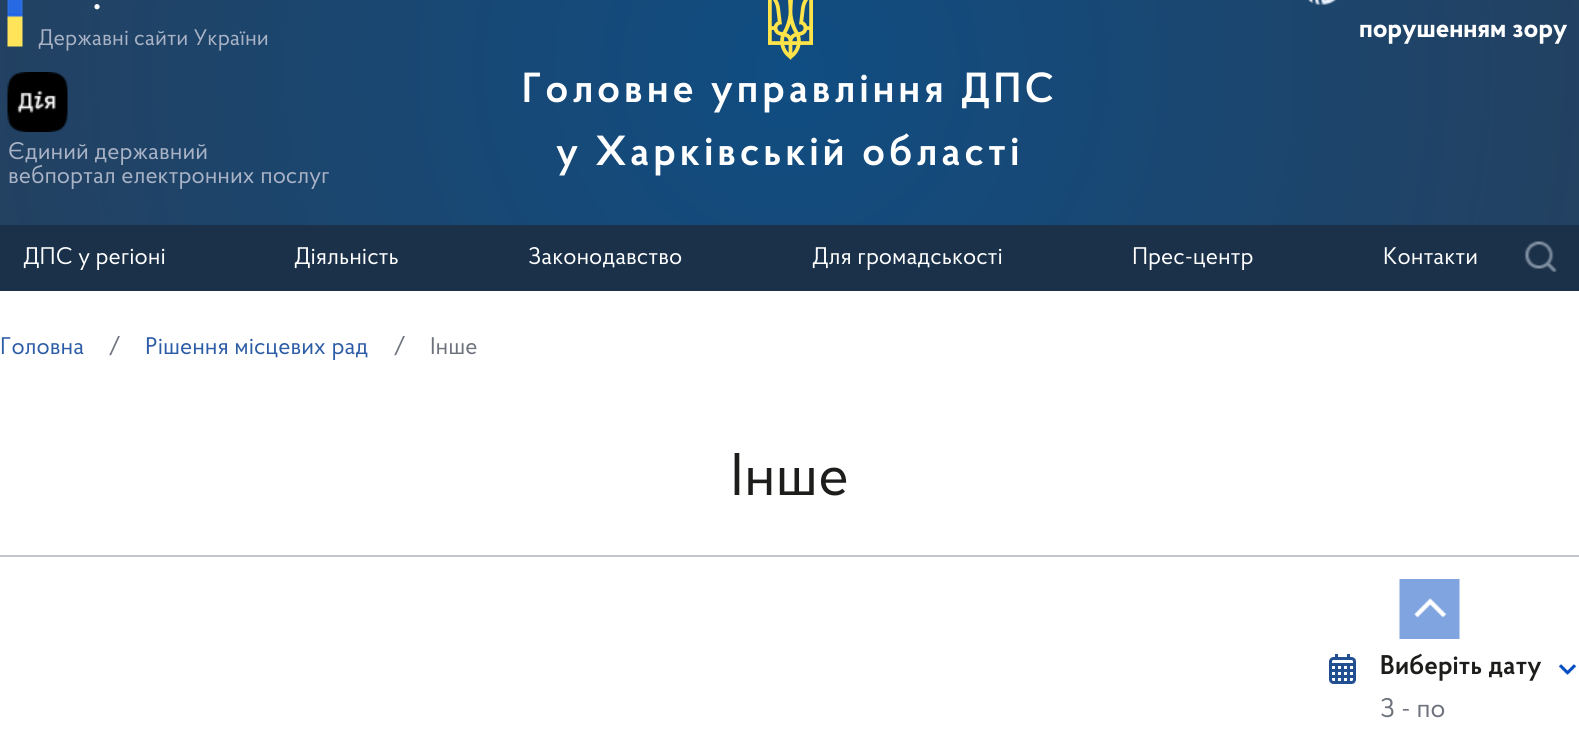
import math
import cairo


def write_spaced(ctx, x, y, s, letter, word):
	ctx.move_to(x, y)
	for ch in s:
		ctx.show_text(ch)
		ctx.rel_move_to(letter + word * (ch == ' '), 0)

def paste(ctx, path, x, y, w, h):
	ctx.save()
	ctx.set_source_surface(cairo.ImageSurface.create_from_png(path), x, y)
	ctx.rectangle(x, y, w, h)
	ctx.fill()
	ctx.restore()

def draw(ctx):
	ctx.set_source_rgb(1, 1, 1)
	ctx.paint()
	gradient = cairo.RadialGradient(790, 68, 0, 790, 68, 805)
	gradient.add_color_stop_rgba(0, 0.063, 0.302, 0.51, 1)
	gradient.add_color_stop_rgba(1, 0.137, 0.255, 0.38, 1)
	ctx.set_source(gradient)
	ctx.rectangle(0, 0, 1579, 225)
	ctx.fill()
	paste(ctx, 'media/1.png', 7, 0, 16, 47)
	ctx.select_font_face('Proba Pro', cairo.FONT_SLANT_NORMAL, cairo.FONT_WEIGHT_BOLD)
	ctx.set_font_size(35)
	ctx.set_source_rgb(1, 1, 1)
	ctx.move_to(93, 9)
	ctx.show_text('.')
	ctx.select_font_face('Proba Pro')
	ctx.set_font_size(22.5)
	ctx.set_source_rgb(0.667, 0.702, 0.776)
	ctx.move_to(38, 45)
	ctx.show_text('Державні сайти України')
	paste(ctx, 'media/2.png', 1308, 0, 29, 5)
	ctx.select_font_face('Proba Pro', cairo.FONT_SLANT_NORMAL, cairo.FONT_WEIGHT_BOLD)
	ctx.set_font_size(27)
	ctx.set_source_rgb(1, 1, 1)
	ctx.move_to(1359, 37)
	ctx.show_text('порушенням зору')
	paste(ctx, 'media/3.png', 768, 0, 45, 60)
	ctx.select_font_face('Proba Pro SemiBold')
	ctx.set_font_size(42)
	write_spaced(ctx, 522, 102, 'Головне управління ДПС', 3.8, 0)
	write_spaced(ctx, 556, 165, 'у Харківській області', 3.8, 0)
	paste(ctx, 'media/4.png', 7, 72, 61, 60)
	ctx.select_font_face('Proba Pro')
	ctx.set_font_size(24)
	ctx.set_source_rgb(0.667, 0.702, 0.776)
	ctx.move_to(8, 159)
	ctx.show_text('Єдиний державний')
	ctx.move_to(8, 183)
	ctx.show_text('вебпортал електронних послуг')
	ctx.set_source_rgb(0.102, 0.192, 0.286)
	ctx.rectangle(0, 225, 1579, 66)
	ctx.fill()
	ctx.set_source_rgb(1, 1, 1)
	for x, y, s in [
		(23, 264, 'ДПС у регіоні'),
		(294, 264, 'Діяльність'),
		(528, 264, 'Законодавство'),
		(812, 264, 'Для громадськості'),
		(1132, 264, 'Прес-центр'),
		(1383, 264, 'Контакти'),
	]:
		ctx.move_to(x, y)
		ctx.show_text(s)
	paste(ctx, 'media/5.png', 1524, 241, 33, 32)
	ctx.set_source_rgb(0.176, 0.361, 0.651)
	ctx.move_to(0, 354)
	ctx.show_text('Головна')
	ctx.set_source_rgb(0.427, 0.447, 0.486)
	ctx.move_to(108, 354)
	ctx.show_text('/')
	ctx.set_source_rgb(0.176, 0.361, 0.651)
	ctx.move_to(145, 354)
	ctx.show_text('Рішення місцевих рад')
	ctx.set_source_rgb(0.427, 0.447, 0.486)
	ctx.move_to(393, 354)
	ctx.show_text('/')
	ctx.move_to(430, 354)
	ctx.show_text('Інше')
	ctx.set_source_rgb(0.761, 0.773, 0.796)
	ctx.rectangle(0, 555, 1579, 2)
	ctx.fill()
	ctx.set_font_size(60)
	ctx.set_source_rgb(0.114, 0.114, 0.106)
	ctx.move_to(730, 495)
	ctx.show_text('Інше')
	paste(ctx, 'media/6.png', 1329, 654, 27, 30)
	ctx.select_font_face('Proba Pro SemiBold')
	ctx.set_font_size(27)
	ctx.move_to(1380, 674)
	ctx.show_text('Виберіть дату')
	paste(ctx, 'media/7.png', 1558, 664, 19, 11)
	ctx.select_font_face('Proba Pro')
	ctx.set_source_rgb(0.427, 0.447, 0.486)
	ctx.move_to(1380, 717)
	ctx.show_text('З - по')
	paste(ctx, 'media/8.png', 1399, 579, 61, 60)


surface = cairo.ImageSurface(cairo.FORMAT_RGB24, 1579, 729)
ctx = cairo.Context(surface)
options = cairo.FontOptions()
options.set_hint_metrics(cairo.HINT_METRICS_OFF)
options.set_hint_style(cairo.HINT_STYLE_NONE)
ctx.set_font_options(options)
ctx.set_miter_limit(4)
draw(ctx)
surface.write_to_png('image.png')
